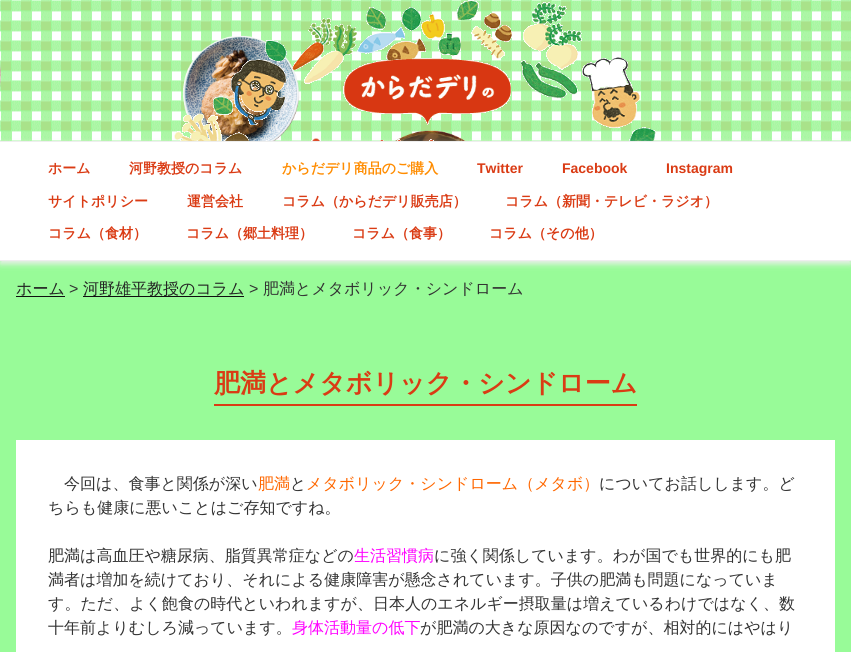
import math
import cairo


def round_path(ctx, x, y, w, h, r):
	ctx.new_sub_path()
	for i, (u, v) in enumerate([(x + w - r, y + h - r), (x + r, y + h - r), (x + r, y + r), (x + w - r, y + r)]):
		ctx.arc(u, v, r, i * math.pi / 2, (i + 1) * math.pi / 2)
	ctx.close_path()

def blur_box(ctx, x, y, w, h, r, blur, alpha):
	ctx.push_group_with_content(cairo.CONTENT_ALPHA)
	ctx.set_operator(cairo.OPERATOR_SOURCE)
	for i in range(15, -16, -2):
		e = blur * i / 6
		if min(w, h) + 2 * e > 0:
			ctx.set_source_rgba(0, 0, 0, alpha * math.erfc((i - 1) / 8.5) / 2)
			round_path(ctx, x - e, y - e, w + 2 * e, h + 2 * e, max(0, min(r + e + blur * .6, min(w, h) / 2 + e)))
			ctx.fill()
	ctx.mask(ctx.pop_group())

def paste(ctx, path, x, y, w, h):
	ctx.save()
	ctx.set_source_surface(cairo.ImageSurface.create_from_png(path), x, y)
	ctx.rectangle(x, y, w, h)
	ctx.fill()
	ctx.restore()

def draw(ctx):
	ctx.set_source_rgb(1, 1, 1)
	ctx.paint()
	paste(ctx, 'media/1.png', 0, 0, 851, 141)
	paste(ctx, 'media/2.png', 174, 0, 482, 141)
	ctx.set_source_rgb(0.596, 0.984, 0.596)
	ctx.rectangle(0, 261, 851, 391)
	ctx.fill()
	ctx.set_source_rgb(0.933, 0.933, 0.933)
	blur_box(ctx, 0, 144, 851, 120, 0, 3, 1)
	ctx.set_source_rgb(1, 1, 1)
	ctx.rectangle(0, 142, 851, 118)
	ctx.fill()
	ctx.set_source_rgb(0.933, 0.933, 0.933)
	ctx.rectangle(0, 141, 851, 1)
	ctx.rectangle(0, 260, 851, 1)
	ctx.fill()
	ctx.select_font_face('WenQuanYi Zen Hei', cairo.FONT_SLANT_NORMAL, cairo.FONT_WEIGHT_BOLD)
	ctx.set_font_size(14)
	ctx.set_source_rgb(0.855, 0.231, 0.082)
	ctx.move_to(48, 173)
	ctx.show_text('ホーム')
	ctx.move_to(129, 173)
	ctx.show_text('河野教授のコラム')
	ctx.set_source_rgb(1, 0.549, 0)
	ctx.move_to(282, 173)
	ctx.show_text('からだデリ商品のご購入')
	ctx.select_font_face('Liberation Sans', cairo.FONT_SLANT_NORMAL, cairo.FONT_WEIGHT_BOLD)
	ctx.set_source_rgb(0.855, 0.231, 0.082)
	for x, y, s in [
		(477, 173, 'Twitter'),
		(562, 173, 'Facebook'),
		(666, 173, 'Instagram'),
	]:
		ctx.move_to(x, y)
		ctx.show_text(s)
	ctx.select_font_face('WenQuanYi Zen Hei', cairo.FONT_SLANT_NORMAL, cairo.FONT_WEIGHT_BOLD)
	for x, y, s in [
		(48, 206, 'サイトポリシー'),
		(187, 206, '運営会社'),
		(282, 206, 'コラム（からだデリ販売店）'),
		(505, 206, 'コラム（新聞・テレビ・ラジオ）'),
		(48, 238, 'コラム（食材）'),
		(186, 238, 'コラム（郷土料理）'),
		(352, 238, 'コラム（食事）'),
		(489, 238, 'コラム（その他）'),
	]:
		ctx.move_to(x, y)
		ctx.show_text(s)
	ctx.select_font_face('WenQuanYi Zen Hei Medium')
	ctx.set_font_size(16)
	ctx.set_source_rgb(0.133, 0.133, 0.133)
	ctx.move_to(16, 294)
	ctx.show_text('ホーム')
	ctx.set_source_rgb(0.059, 0.059, 0.059)
	ctx.rectangle(16, 296, 49, 1)
	ctx.fill()
	ctx.select_font_face('Liberation Sans')
	ctx.set_source_rgb(0.2, 0.2, 0.2)
	ctx.move_to(69, 294)
	ctx.show_text('>')
	ctx.set_source_rgb(0.059, 0.059, 0.059)
	ctx.rectangle(83, 296, 161, 1)
	ctx.fill()
	ctx.select_font_face('WenQuanYi Zen Hei Medium')
	ctx.set_source_rgb(0.133, 0.133, 0.133)
	ctx.move_to(83, 294)
	ctx.show_text('河野雄平教授のコラム')
	ctx.select_font_face('Liberation Sans')
	ctx.set_source_rgb(0.2, 0.2, 0.2)
	ctx.move_to(249, 294)
	ctx.show_text('>')
	ctx.select_font_face('WenQuanYi Zen Hei Medium')
	ctx.move_to(263, 294)
	ctx.show_text('肥満とメタボリック・シンドローム')
	ctx.set_source_rgb(0.855, 0.231, 0.082)
	ctx.rectangle(214, 404, 423, 2)
	ctx.fill()
	ctx.select_font_face('WenQuanYi Zen Hei', cairo.FONT_SLANT_NORMAL, cairo.FONT_WEIGHT_BOLD)
	ctx.set_font_size(26)
	ctx.move_to(214, 392)
	ctx.show_text('肥満とメタボリック・シンドローム')
	ctx.set_source_rgb(1, 1, 1)
	ctx.rectangle(16, 440, 819, 212)
	ctx.fill()
	ctx.select_font_face('WenQuanYi Zen Hei Medium')
	ctx.set_font_size(16)
	ctx.set_source_rgb(0.2, 0.2, 0.2)
	ctx.move_to(64, 489)
	ctx.show_text('今回は、食事と関係が深い')
	ctx.set_source_rgb(1, 0.404, 0)
	ctx.move_to(258, 489)
	ctx.show_text('肥満')
	ctx.set_source_rgb(0.2, 0.2, 0.2)
	ctx.move_to(290, 489)
	ctx.show_text('と')
	ctx.set_source_rgb(1, 0.404, 0)
	ctx.move_to(306, 489)
	ctx.show_text('メタボリック・シンドローム（メタボ）')
	ctx.set_source_rgb(0.2, 0.2, 0.2)
	for x, y, s in [
		(599, 489, 'についてお話しします。ど'),
		(48, 513, 'ちらも健康に悪いことはご存知ですね。'),
		(48, 561, '肥満は高血圧や糖尿病、脂質異常症などの'),
	]:
		ctx.move_to(x, y)
		ctx.show_text(s)
	ctx.set_source_rgb(1, 0, 1)
	ctx.move_to(354, 561)
	ctx.show_text('生活習慣病')
	ctx.set_source_rgb(0.2, 0.2, 0.2)
	for x, y, s in [
		(434, 561, 'に強く関係しています。わが国でも世界的にも肥'),
		(48, 585, '満者は増加を続けており、それによる健康障害が懸念されています。子供の肥満も問題になっていま'),
		(48, 609, 'す。ただ、よく飽食の時代といわれますが、日本人のエネルギー摂取量は増えているわけではなく、数'),
		(48, 633, '十年前よりむしろ減っています。'),
	]:
		ctx.move_to(x, y)
		ctx.show_text(s)
	ctx.set_source_rgb(1, 0, 1)
	ctx.move_to(292, 633)
	ctx.show_text('身体活動量の低下')
	ctx.set_source_rgb(0.2, 0.2, 0.2)
	ctx.move_to(420, 633)
	ctx.show_text('が肥満の大きな原因なのですが、相対的にはやはり')


surface = cairo.ImageSurface(cairo.FORMAT_RGB24, 851, 652)
ctx = cairo.Context(surface)
options = cairo.FontOptions()
options.set_hint_metrics(cairo.HINT_METRICS_OFF)
options.set_hint_style(cairo.HINT_STYLE_NONE)
ctx.set_font_options(options)
ctx.set_miter_limit(4)
draw(ctx)
surface.write_to_png('image.png')
